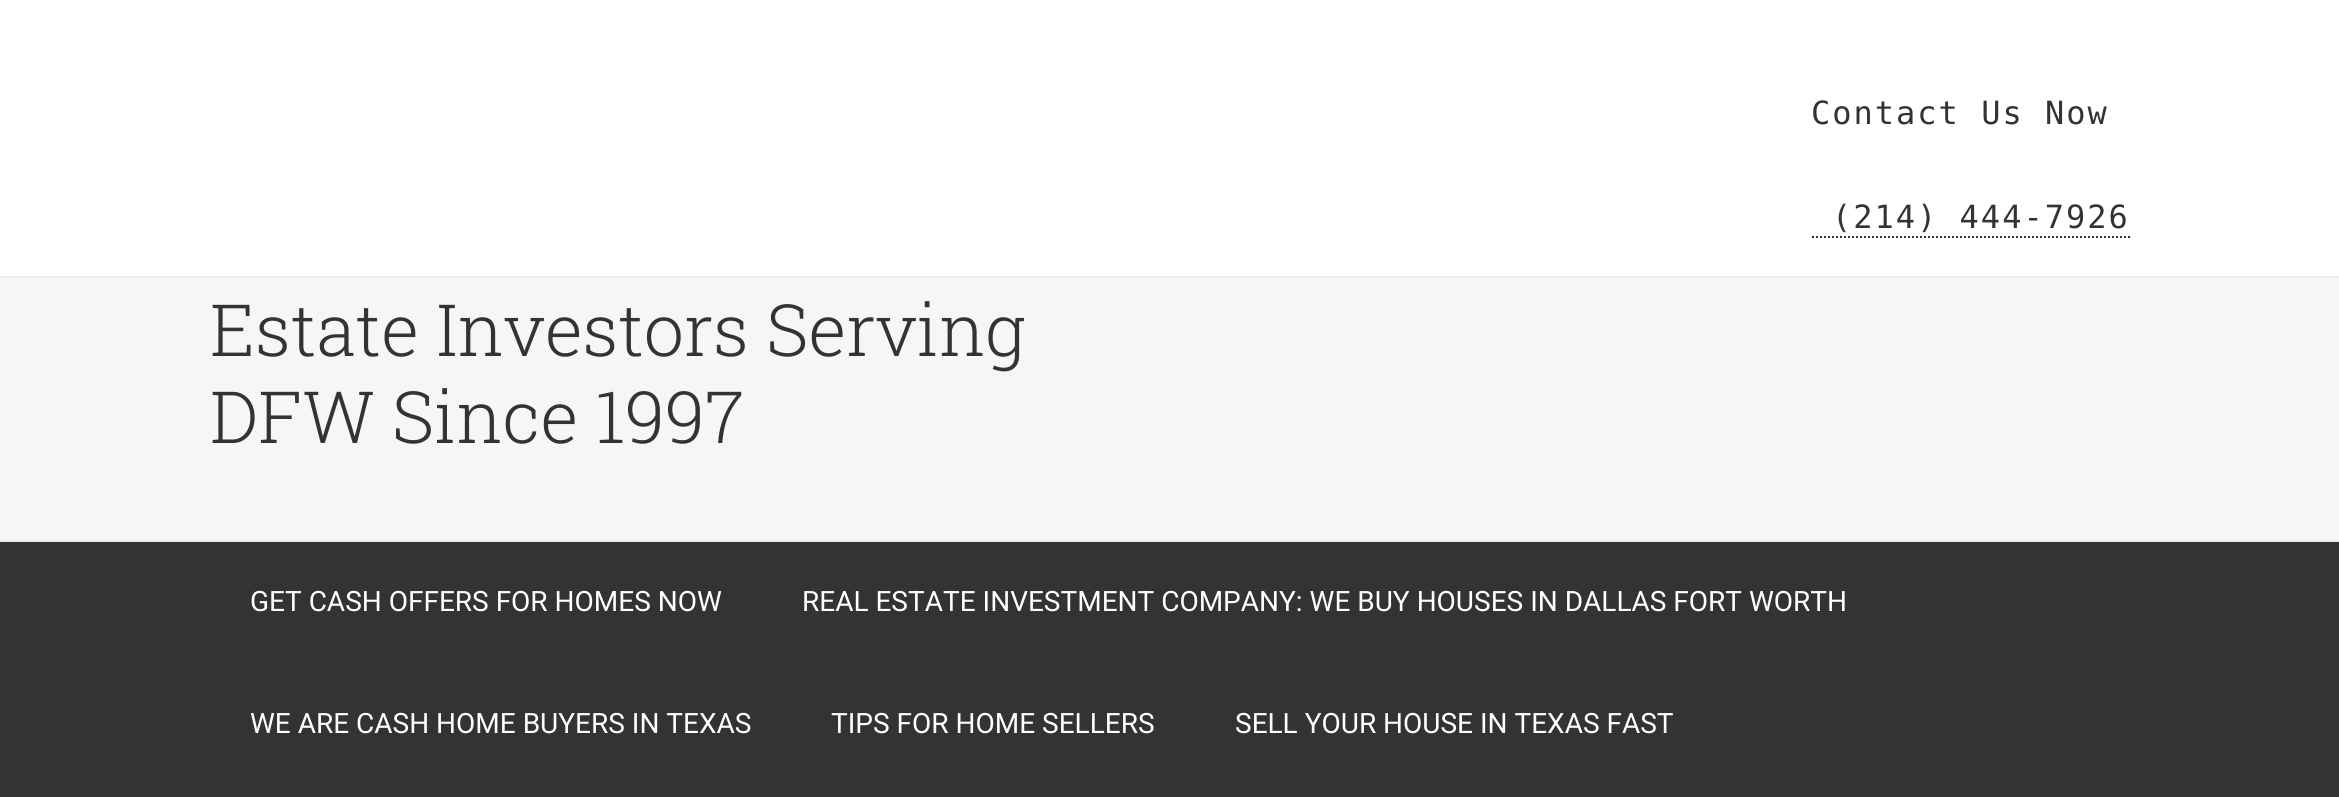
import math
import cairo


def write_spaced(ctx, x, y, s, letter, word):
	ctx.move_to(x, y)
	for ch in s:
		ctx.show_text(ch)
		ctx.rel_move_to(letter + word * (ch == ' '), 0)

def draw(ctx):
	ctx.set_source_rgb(0.961, 0.961, 0.961)
	ctx.paint()
	ctx.set_source_rgb(1, 1, 1)
	ctx.rectangle(0, 0, 2339, 276)
	ctx.fill()
	ctx.set_source_rgb(0.933, 0.933, 0.933)
	ctx.rectangle(0, 276, 2339, 2)
	ctx.fill()
	ctx.select_font_face('DejaVu Sans Mono')
	ctx.set_font_size(32)
	ctx.set_source_rgb(0.2, 0.2, 0.2)
	write_spaced(ctx, 1811, 124, 'Contact Us Now', 2, 0)
	write_spaced(ctx, 1832, 228, '(214) 444-7926', 2, 0)
	ctx.new_path()
	ctx.move_to(1812, 237)
	ctx.line_to(1832, 237)
	ctx.set_dash([2, 2])
	ctx.stroke()
	ctx.new_path()
	ctx.move_to(1832, 237)
	ctx.line_to(2130, 237)
	ctx.stroke()
	ctx.set_source_rgb(0.933, 0.933, 0.933)
	ctx.rectangle(0, 540, 2339, 2)
	ctx.fill()
	ctx.select_font_face('Roboto Slab Light')
	ctx.set_font_size(72)
	ctx.set_source_rgb(0.2, 0.2, 0.2)
	ctx.move_to(210, 356)
	ctx.show_text('Estate Investors Serving')
	ctx.move_to(210, 443)
	ctx.show_text('DFW Since 1997')
	ctx.rectangle(0, 542, 2339, 255)
	ctx.fill()
	ctx.select_font_face('Roboto')
	ctx.set_font_size(28)
	ctx.set_source_rgb(1, 1, 1)
	for x, y, s in [
		(250, 611, 'GET CASH OFFERS FOR HOMES NOW'),
		(802, 611, 'REAL ESTATE INVESTMENT COMPANY: WE BUY HOUSES IN DALLAS FORT WORTH'),
		(250, 733, 'WE ARE CASH HOME BUYERS IN TEXAS'),
		(831, 733, 'TIPS FOR HOME SELLERS'),
		(1235, 733, 'SELL YOUR HOUSE IN TEXAS FAST'),
	]:
		ctx.move_to(x, y)
		ctx.show_text(s)


surface = cairo.ImageSurface(cairo.FORMAT_RGB24, 2339, 797)
ctx = cairo.Context(surface)
options = cairo.FontOptions()
options.set_hint_metrics(cairo.HINT_METRICS_OFF)
options.set_hint_style(cairo.HINT_STYLE_NONE)
ctx.set_font_options(options)
ctx.set_miter_limit(4)
draw(ctx)
surface.write_to_png('image.png')
